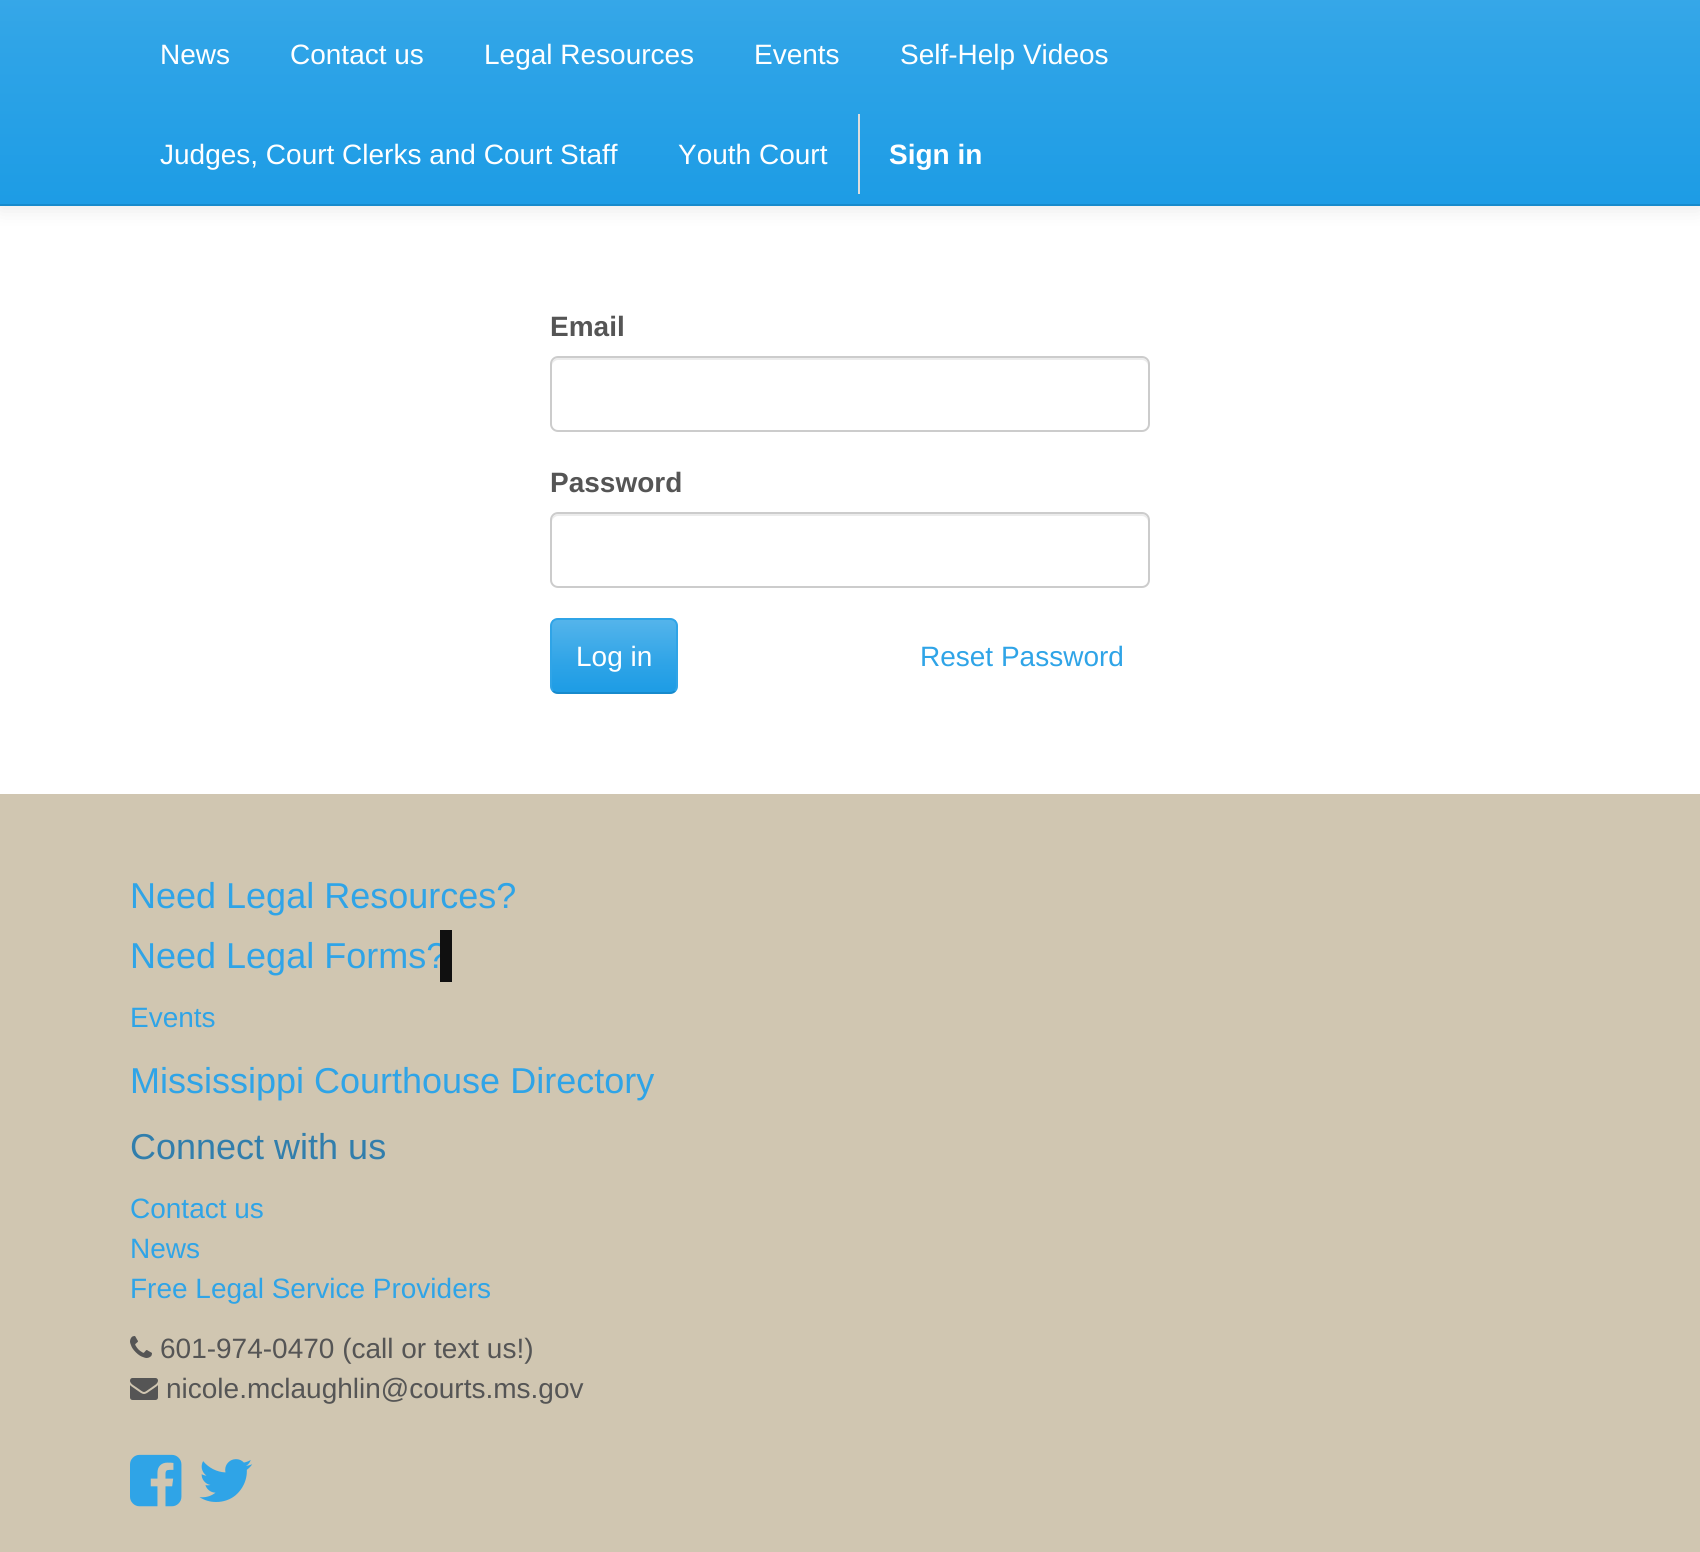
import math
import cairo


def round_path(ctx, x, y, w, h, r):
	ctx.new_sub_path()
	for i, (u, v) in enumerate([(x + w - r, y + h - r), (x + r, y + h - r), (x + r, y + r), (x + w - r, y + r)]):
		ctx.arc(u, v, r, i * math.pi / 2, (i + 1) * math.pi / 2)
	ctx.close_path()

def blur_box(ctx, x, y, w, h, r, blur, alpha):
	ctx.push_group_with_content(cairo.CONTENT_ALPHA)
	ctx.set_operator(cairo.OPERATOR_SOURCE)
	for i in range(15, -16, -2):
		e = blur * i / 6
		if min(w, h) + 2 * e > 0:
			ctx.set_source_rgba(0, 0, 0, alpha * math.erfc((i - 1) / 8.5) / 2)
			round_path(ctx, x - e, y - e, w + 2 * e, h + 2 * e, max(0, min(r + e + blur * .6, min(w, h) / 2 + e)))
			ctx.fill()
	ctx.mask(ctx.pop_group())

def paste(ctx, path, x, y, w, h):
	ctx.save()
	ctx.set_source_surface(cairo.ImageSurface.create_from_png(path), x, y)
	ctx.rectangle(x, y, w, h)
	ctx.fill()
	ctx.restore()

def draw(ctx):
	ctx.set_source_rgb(1, 1, 1)
	ctx.paint()
	ctx.set_source_rgb(0, 0, 0)
	blur_box(ctx, 0, -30, 1700, 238, 0, 10, 0.1)
	gradient = cairo.LinearGradient(850, -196, 850, 204)
	gradient.add_color_stop_rgba(0, 0.329, 0.706, 0.922, 1)
	gradient.add_color_stop_rgba(0.6, 0.184, 0.643, 0.906, 1)
	gradient.add_color_stop_rgba(1, 0.114, 0.612, 0.898, 1)
	ctx.set_source(gradient)
	ctx.rectangle(0, 0, 1700, 204)
	ctx.fill()
	ctx.set_source_rgb(0.09, 0.541, 0.8)
	ctx.rectangle(0, 204, 1700, 2)
	ctx.fill()
	ctx.select_font_face('Liberation Sans')
	ctx.set_font_size(28)
	ctx.set_source_rgb(1, 1, 1)
	for x, y, s in [
		(160, 64, 'News'),
		(290, 64, 'Contact us'),
		(484, 64, 'Legal Resources'),
		(754, 64, 'Events'),
		(900, 64, 'Self-Help Videos'),
		(160, 164, 'Judges, Court Clerks and Court Staff'),
		(678, 164, 'Youth Court'),
	]:
		ctx.move_to(x, y)
		ctx.show_text(s)
	ctx.set_source_rgb(0.867, 0.867, 0.867)
	ctx.rectangle(858, 114, 2, 80)
	ctx.fill()
	ctx.select_font_face('Liberation Sans', cairo.FONT_SLANT_NORMAL, cairo.FONT_WEIGHT_BOLD)
	ctx.set_source_rgb(1, 1, 1)
	ctx.move_to(889, 164)
	ctx.show_text('Sign in')
	ctx.set_source_rgb(0.333, 0.333, 0.333)
	ctx.move_to(550, 336)
	ctx.show_text('Email')
	ctx.set_source_rgb(0.925, 0.925, 0.925)
	ctx.new_path()
	ctx.move_to(558, 360)
	ctx.line_to(1142, 360)
	ctx.curve_to(1145, 360, 1148, 363, 1148, 366)
	ctx.line_to(1148, 364)
	ctx.curve_to(1148, 361, 1145, 358, 1142, 358)
	ctx.line_to(558, 358)
	ctx.curve_to(555, 358, 552, 361, 552, 364)
	ctx.line_to(552, 366)
	ctx.curve_to(552, 363, 555, 360, 558, 360)
	ctx.close_path()
	ctx.fill()
	round_path(ctx, 551, 357, 598, 74, 7)
	ctx.set_source_rgb(0.8, 0.8, 0.8)
	ctx.stroke()
	ctx.set_source_rgb(0.333, 0.333, 0.333)
	ctx.move_to(550, 492)
	ctx.show_text('Password')
	ctx.set_source_rgb(0.925, 0.925, 0.925)
	ctx.new_path()
	ctx.move_to(558, 516)
	ctx.line_to(1142, 516)
	ctx.curve_to(1145, 516, 1148, 519, 1148, 522)
	ctx.line_to(1148, 520)
	ctx.curve_to(1148, 517, 1145, 514, 1142, 514)
	ctx.line_to(558, 514)
	ctx.curve_to(555, 514, 552, 517, 552, 520)
	ctx.line_to(552, 522)
	ctx.curve_to(552, 519, 555, 516, 558, 516)
	ctx.close_path()
	ctx.fill()
	round_path(ctx, 551, 513, 598, 74, 7)
	ctx.set_source_rgb(0.8, 0.8, 0.8)
	ctx.stroke()
	ctx.save()
	round_path(ctx, 550, 618, 128, 76, 8)
	ctx.clip()
	gradient = cairo.LinearGradient(614, 620, 614, 692)
	gradient.add_color_stop_rgba(0, 0.329, 0.706, 0.922, 1)
	gradient.add_color_stop_rgba(0.6, 0.184, 0.643, 0.906, 1)
	gradient.add_color_stop_rgba(1, 0.114, 0.612, 0.898, 1)
	ctx.set_source(gradient)
	ctx.rectangle(552, 620, 124, 72)
	ctx.fill()
	ctx.restore()
	ctx.new_path()
	ctx.move_to(675, 691)
	ctx.curve_to(673.5, 692.5, 672, 693, 670, 693)
	ctx.line_to(558, 693)
	ctx.curve_to(556, 693, 554.5, 692.5, 553, 691)
	ctx.set_source_rgb(0.09, 0.541, 0.8)
	ctx.stroke()
	ctx.new_path()
	ctx.move_to(553, 691)
	ctx.curve_to(551.5, 689.5, 551, 688, 551, 686)
	ctx.line_to(551, 626)
	ctx.curve_to(551, 624, 551.5, 622.5, 553, 621)
	ctx.curve_to(554.5, 619.5, 556, 619, 558, 619)
	ctx.line_to(670, 619)
	ctx.curve_to(672, 619, 673.5, 619.5, 675, 621)
	ctx.curve_to(676.5, 622.5, 677, 624, 677, 626)
	ctx.line_to(677, 686)
	ctx.curve_to(677, 688, 676.5, 689.5, 675, 691)
	ctx.set_source_rgb(0.184, 0.643, 0.906)
	ctx.stroke()
	ctx.select_font_face('Liberation Sans')
	ctx.set_source_rgb(1, 1, 1)
	ctx.move_to(576, 666)
	ctx.show_text('Log in')
	ctx.set_source_rgb(0.184, 0.643, 0.906)
	ctx.move_to(920, 666)
	ctx.show_text('Reset Password')
	ctx.set_source_rgb(0.816, 0.776, 0.694)
	ctx.rectangle(0, 794, 1700, 758)
	ctx.fill()
	ctx.set_font_size(36)
	ctx.set_source_rgb(0.184, 0.643, 0.906)
	ctx.move_to(130, 908)
	ctx.show_text('Need Legal Resources?')
	ctx.move_to(130, 968)
	ctx.show_text('Need Legal Forms?')
	ctx.set_source_rgb(0.063, 0.063, 0.063)
	ctx.rectangle(440, 930, 12, 52)
	ctx.fill()
	ctx.set_font_size(28)
	ctx.set_source_rgb(0.184, 0.643, 0.906)
	ctx.move_to(130, 1027)
	ctx.show_text('Events')
	ctx.set_font_size(36)
	ctx.move_to(130, 1093)
	ctx.show_text('Mississippi Courthouse Directory')
	ctx.set_source_rgb(0.192, 0.494, 0.675)
	ctx.move_to(130, 1159)
	ctx.show_text('Connect with us')
	ctx.set_font_size(28)
	ctx.set_source_rgb(0.184, 0.643, 0.906)
	for x, y, s in [
		(130, 1218, 'Contact us'),
		(130, 1258, 'News'),
		(130, 1298, 'Free Legal Service Providers'),
	]:
		ctx.move_to(x, y)
		ctx.show_text(s)
	paste(ctx, 'media/1.png', 130, 1336, 22, 22)
	ctx.set_source_rgb(0.333, 0.333, 0.333)
	ctx.move_to(160, 1358)
	ctx.show_text('601-974-0470 (call or text us!)')
	paste(ctx, 'media/2.png', 130, 1378, 28, 22)
	ctx.move_to(166, 1398)
	ctx.show_text('nicole.mclaughlin@courts.ms.gov')
	paste(ctx, 'media/3.png', 130, 1454, 52, 53)
	paste(ctx, 'media/4.png', 199, 1459, 54, 43)


surface = cairo.ImageSurface(cairo.FORMAT_RGB24, 1700, 1552)
ctx = cairo.Context(surface)
options = cairo.FontOptions()
options.set_hint_metrics(cairo.HINT_METRICS_OFF)
options.set_hint_style(cairo.HINT_STYLE_NONE)
ctx.set_font_options(options)
ctx.set_miter_limit(4)
draw(ctx)
surface.write_to_png('image.png')
